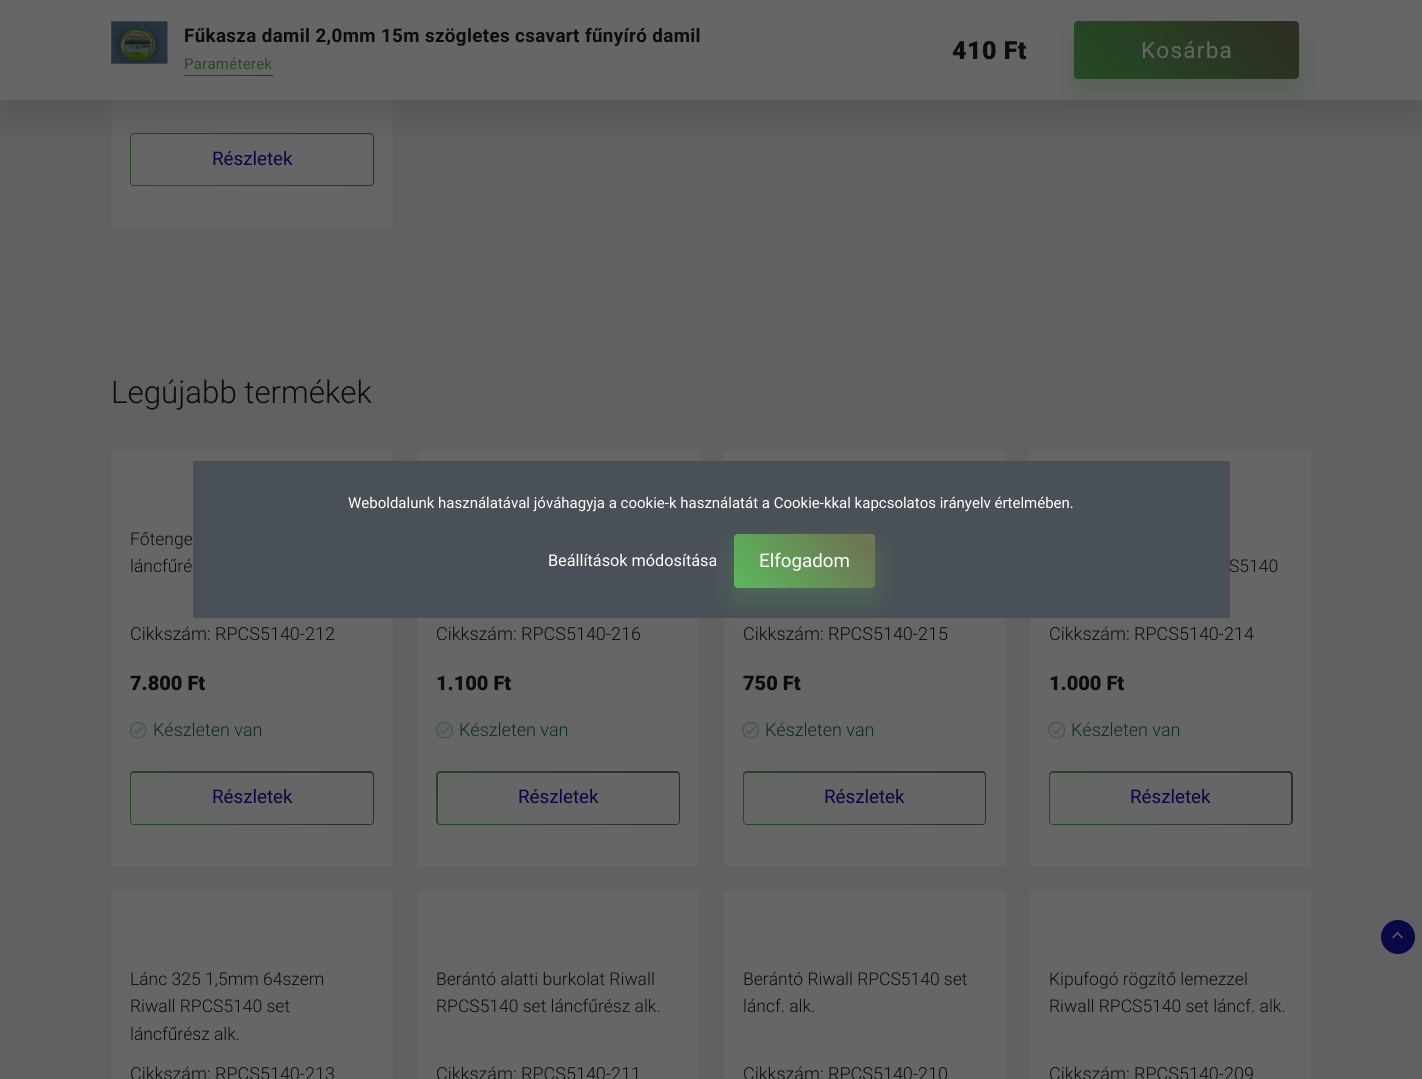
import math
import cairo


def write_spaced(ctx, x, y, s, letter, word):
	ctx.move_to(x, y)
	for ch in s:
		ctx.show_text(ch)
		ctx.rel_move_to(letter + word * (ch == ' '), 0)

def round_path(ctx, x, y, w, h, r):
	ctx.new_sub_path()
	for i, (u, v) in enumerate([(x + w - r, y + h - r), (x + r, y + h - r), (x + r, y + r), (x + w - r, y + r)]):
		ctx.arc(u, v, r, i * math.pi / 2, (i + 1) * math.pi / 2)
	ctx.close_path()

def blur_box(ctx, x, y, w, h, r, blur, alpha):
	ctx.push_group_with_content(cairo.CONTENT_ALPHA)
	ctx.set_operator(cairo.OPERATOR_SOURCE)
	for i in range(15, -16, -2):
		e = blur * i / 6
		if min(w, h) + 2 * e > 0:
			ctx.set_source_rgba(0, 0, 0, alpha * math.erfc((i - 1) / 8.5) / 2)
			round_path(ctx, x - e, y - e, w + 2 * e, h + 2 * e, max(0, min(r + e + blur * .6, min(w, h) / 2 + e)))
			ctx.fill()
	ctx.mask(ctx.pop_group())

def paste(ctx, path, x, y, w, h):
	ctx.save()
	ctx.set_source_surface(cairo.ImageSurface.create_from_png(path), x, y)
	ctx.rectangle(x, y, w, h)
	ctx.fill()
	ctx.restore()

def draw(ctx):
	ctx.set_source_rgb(0.38, 0.38, 0.38)
	ctx.paint()
	ctx.set_source_rgb(0.4, 0.4, 0.4)
	ctx.rectangle(111, 100, 282, 128)
	ctx.fill()
	gradient = cairo.LinearGradient(217, 291, 530, 28)
	gradient.add_color_stop_rgba(0, 0.145, 0.29, 0.145, 1)
	gradient.add_color_stop_rgba(0.51, 0.173, 0.184, 0.133, 1)
	gradient.add_color_stop_rgba(1, 0.145, 0.29, 0.145, 1)
	ctx.set_source(gradient)
	round_path(ctx, 130, 133, 244, 53, 4)
	ctx.fill()
	ctx.set_source_rgb(0.4, 0.4, 0.4)
	round_path(ctx, 131, 134, 242, 51, 2.5)
	ctx.fill()
	ctx.set_source_rgb(0, 0, 0)
	blur_box(ctx, 0, 13, 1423, 100, 0, 25, 0.15)
	ctx.set_source_rgb(0.4, 0.4, 0.4)
	ctx.rectangle(0, 0, 1422, 100)
	ctx.fill()
	paste(ctx, 'media/1.png', 111, 21, 57, 43)
	ctx.select_font_face('Roboto', cairo.FONT_SLANT_NORMAL, cairo.FONT_WEIGHT_BOLD)
	ctx.set_font_size(18.75)
	ctx.set_source_rgb(0.051, 0.047, 0.047)
	write_spaced(ctx, 184, 42, 'Fűkasza damil 2,0mm 15m szögletes csavart fűnyíró damil', 0.38, 0)
	ctx.select_font_face('Roboto')
	ctx.set_font_size(15)
	ctx.set_source_rgb(0.145, 0.29, 0.145)
	write_spaced(ctx, 184, 69, 'Paraméterek', 0.25, 0)
	gradient = cairo.LinearGradient(220, 120, 325, 32)
	gradient.add_color_stop_rgba(0, 0.145, 0.29, 0.145, 1)
	gradient.add_color_stop_rgba(0.51, 0.173, 0.184, 0.133, 1)
	gradient.add_color_stop_rgba(1, 0.145, 0.29, 0.145, 1)
	ctx.set_source(gradient)
	ctx.rectangle(184, 75, 89, 1)
	ctx.fill()
	ctx.select_font_face('Roboto Black')
	ctx.set_font_size(25)
	ctx.set_source_rgb(0.051, 0.047, 0.047)
	write_spaced(ctx, 952, 59, '410 Ft', 0.5, 0)
	ctx.set_source_rgb(0.145, 0.29, 0.145)
	blur_box(ctx, 1074, 34, 225, 57, 4, 12.5, 0.25)
	gradient = cairo.LinearGradient(1153, 173, 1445, -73)
	gradient.add_color_stop_rgba(0, 0.145, 0.29, 0.145, 1)
	gradient.add_color_stop_rgba(0.51, 0.173, 0.184, 0.133, 1)
	gradient.add_color_stop_rgba(1, 0.145, 0.29, 0.145, 1)
	ctx.set_source(gradient)
	round_path(ctx, 1074, 21, 225, 58, 4)
	ctx.fill()
	ctx.select_font_face('Roboto')
	ctx.set_font_size(22.5)
	ctx.set_source_rgb(0.4, 0.4, 0.4)
	write_spaced(ctx, 1141, 58, 'Kosárba', 1.25, 0)
	ctx.set_font_size(18.75)
	ctx.set_source_rgb(0.039, 0.031, 0.267)
	ctx.move_to(212, 165)
	ctx.show_text('Részletek')
	ctx.select_font_face('Roboto Light')
	ctx.set_font_size(31.25)
	ctx.set_source_rgb(0.051, 0.047, 0.047)
	ctx.move_to(111, 403)
	ctx.show_text('Legújabb termékek')
	ctx.set_source_rgb(0.4, 0.4, 0.4)
	ctx.rectangle(111, 451, 282, 415)
	ctx.fill()
	ctx.set_font_size(17.5)
	ctx.set_source_rgb(0.051, 0.047, 0.047)
	ctx.move_to(130, 545)
	ctx.show_text('Főtenge')
	ctx.move_to(130, 572)
	ctx.show_text('láncfűré')
	ctx.set_font_size(18)
	ctx.move_to(130, 640)
	ctx.show_text('Cikkszám: RPCS5140-212')
	ctx.select_font_face('Roboto Black')
	ctx.set_font_size(20)
	ctx.move_to(130, 690)
	ctx.show_text('7.800 Ft')
	paste(ctx, 'media/2.png', 130, 722, 17, 17)
	ctx.select_font_face('Roboto Light')
	ctx.set_font_size(18)
	ctx.set_source_rgb(0.035, 0.184, 0.086)
	ctx.move_to(153, 736)
	ctx.show_text('Készleten van')
	gradient = cairo.LinearGradient(217, 929, 530, 667)
	gradient.add_color_stop_rgba(0, 0.145, 0.29, 0.145, 1)
	gradient.add_color_stop_rgba(0.51, 0.173, 0.184, 0.133, 1)
	gradient.add_color_stop_rgba(1, 0.145, 0.29, 0.145, 1)
	ctx.set_source(gradient)
	round_path(ctx, 130, 771, 244, 54, 4)
	ctx.fill()
	ctx.set_source_rgb(0.4, 0.4, 0.4)
	round_path(ctx, 131, 773, 242, 51, 2.5)
	ctx.fill()
	ctx.select_font_face('Roboto')
	ctx.set_font_size(18.75)
	ctx.set_source_rgb(0.039, 0.031, 0.267)
	ctx.move_to(212, 803)
	ctx.show_text('Részletek')
	ctx.set_source_rgb(0.4, 0.4, 0.4)
	ctx.rectangle(418, 451, 281, 415)
	ctx.fill()
	ctx.select_font_face('Roboto Light')
	ctx.set_font_size(18)
	ctx.set_source_rgb(0.051, 0.047, 0.047)
	ctx.move_to(436, 640)
	ctx.show_text('Cikkszám: RPCS5140-216')
	ctx.select_font_face('Roboto Black')
	ctx.set_font_size(20)
	ctx.move_to(436, 690)
	ctx.show_text('1.100 Ft')
	paste(ctx, 'media/3.png', 436, 722, 17, 17)
	ctx.select_font_face('Roboto Light')
	ctx.set_font_size(18)
	ctx.set_source_rgb(0.035, 0.184, 0.086)
	ctx.move_to(459, 736)
	ctx.show_text('Készleten van')
	gradient = cairo.LinearGradient(524, 929, 836, 667)
	gradient.add_color_stop_rgba(0, 0.145, 0.29, 0.145, 1)
	gradient.add_color_stop_rgba(0.51, 0.173, 0.184, 0.133, 1)
	gradient.add_color_stop_rgba(1, 0.145, 0.29, 0.145, 1)
	ctx.set_source(gradient)
	round_path(ctx, 436, 771, 244, 54, 4)
	ctx.fill()
	ctx.set_source_rgb(0.4, 0.4, 0.4)
	round_path(ctx, 438, 773, 241, 51, 2.5)
	ctx.fill()
	ctx.select_font_face('Roboto')
	ctx.set_font_size(18.75)
	ctx.set_source_rgb(0.039, 0.031, 0.267)
	ctx.move_to(518, 803)
	ctx.show_text('Részletek')
	ctx.set_source_rgb(0.4, 0.4, 0.4)
	ctx.rectangle(724, 451, 281, 415)
	ctx.fill()
	ctx.select_font_face('Roboto Light')
	ctx.set_font_size(18)
	ctx.set_source_rgb(0.051, 0.047, 0.047)
	ctx.move_to(743, 640)
	ctx.show_text('Cikkszám: RPCS5140-215')
	ctx.select_font_face('Roboto Black')
	ctx.set_font_size(20)
	ctx.move_to(743, 690)
	ctx.show_text('750 Ft')
	paste(ctx, 'media/4.png', 742, 722, 17, 17)
	ctx.select_font_face('Roboto Light')
	ctx.set_font_size(18)
	ctx.set_source_rgb(0.035, 0.184, 0.086)
	ctx.move_to(765, 736)
	ctx.show_text('Készleten van')
	gradient = cairo.LinearGradient(830, 929, 1143, 667)
	gradient.add_color_stop_rgba(0, 0.145, 0.29, 0.145, 1)
	gradient.add_color_stop_rgba(0.51, 0.173, 0.184, 0.133, 1)
	gradient.add_color_stop_rgba(1, 0.145, 0.29, 0.145, 1)
	ctx.set_source(gradient)
	round_path(ctx, 743, 771, 243, 54, 4)
	ctx.fill()
	ctx.set_source_rgb(0.4, 0.4, 0.4)
	round_path(ctx, 744, 773, 241, 51, 2.5)
	ctx.fill()
	ctx.select_font_face('Roboto')
	ctx.set_font_size(18.75)
	ctx.set_source_rgb(0.039, 0.031, 0.267)
	ctx.move_to(824, 803)
	ctx.show_text('Részletek')
	ctx.set_source_rgb(0.4, 0.4, 0.4)
	ctx.rectangle(1030, 451, 281, 415)
	ctx.fill()
	ctx.select_font_face('Roboto Light')
	ctx.set_font_size(17.5)
	ctx.set_source_rgb(0.051, 0.047, 0.047)
	ctx.move_to(1229, 572)
	ctx.show_text('S5140')
	ctx.set_font_size(18)
	ctx.move_to(1049, 640)
	ctx.show_text('Cikkszám: RPCS5140-214')
	ctx.select_font_face('Roboto Black')
	ctx.set_font_size(20)
	ctx.move_to(1049, 690)
	ctx.show_text('1.000 Ft')
	paste(ctx, 'media/5.png', 1048, 722, 17, 17)
	ctx.select_font_face('Roboto Light')
	ctx.set_font_size(18)
	ctx.set_source_rgb(0.035, 0.184, 0.086)
	ctx.move_to(1071, 736)
	ctx.show_text('Készleten van')
	gradient = cairo.LinearGradient(1136, 929, 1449, 667)
	gradient.add_color_stop_rgba(0, 0.145, 0.29, 0.145, 1)
	gradient.add_color_stop_rgba(0.51, 0.173, 0.184, 0.133, 1)
	gradient.add_color_stop_rgba(1, 0.145, 0.29, 0.145, 1)
	ctx.set_source(gradient)
	round_path(ctx, 1049, 771, 244, 54, 4)
	ctx.fill()
	ctx.set_source_rgb(0.4, 0.4, 0.4)
	round_path(ctx, 1050, 773, 241, 51, 2.5)
	ctx.fill()
	ctx.select_font_face('Roboto')
	ctx.set_font_size(18.75)
	ctx.set_source_rgb(0.039, 0.031, 0.267)
	ctx.move_to(1130, 803)
	ctx.show_text('Részletek')
	ctx.set_source_rgb(0.4, 0.4, 0.4)
	ctx.rectangle(111, 891, 282, 188)
	ctx.fill()
	ctx.select_font_face('Roboto Light')
	ctx.set_font_size(17.5)
	ctx.set_source_rgb(0.051, 0.047, 0.047)
	for x, y, s in [
		(130, 985, 'Lánc 325 1,5mm 64szem'),
		(130, 1012, 'Riwall RPCS5140 set'),
		(130, 1040, 'láncfűrész alk.'),
	]:
		ctx.move_to(x, y)
		ctx.show_text(s)
	ctx.set_font_size(18)
	ctx.move_to(130, 1080)
	ctx.show_text('Cikkszám: RPCS5140-213')
	ctx.set_source_rgb(0.4, 0.4, 0.4)
	ctx.rectangle(418, 891, 281, 188)
	ctx.fill()
	ctx.set_font_size(17.5)
	ctx.set_source_rgb(0.051, 0.047, 0.047)
	ctx.move_to(436, 985)
	ctx.show_text('Berántó alatti burkolat Riwall')
	ctx.move_to(436, 1012)
	ctx.show_text('RPCS5140 set láncfűrész alk.')
	ctx.set_font_size(18)
	ctx.move_to(436, 1080)
	ctx.show_text('Cikkszám: RPCS5140-211')
	ctx.set_source_rgb(0.4, 0.4, 0.4)
	ctx.rectangle(724, 891, 281, 188)
	ctx.fill()
	ctx.set_font_size(17.5)
	ctx.set_source_rgb(0.051, 0.047, 0.047)
	ctx.move_to(743, 985)
	ctx.show_text('Berántó Riwall RPCS5140 set')
	ctx.move_to(743, 1012)
	ctx.show_text('láncf. alk.')
	ctx.set_font_size(18)
	ctx.move_to(743, 1080)
	ctx.show_text('Cikkszám: RPCS5140-210')
	ctx.set_source_rgb(0.4, 0.4, 0.4)
	ctx.rectangle(1030, 891, 281, 188)
	ctx.fill()
	ctx.set_font_size(17.5)
	ctx.set_source_rgb(0.051, 0.047, 0.047)
	ctx.move_to(1049, 985)
	ctx.show_text('Kipufogó rögzítő lemezzel')
	ctx.move_to(1049, 1012)
	ctx.show_text('Riwall RPCS5140 set láncf. alk.')
	ctx.set_font_size(18)
	ctx.move_to(1049, 1080)
	ctx.show_text('Cikkszám: RPCS5140-209')
	ctx.set_source_rgb(0.039, 0.031, 0.267)
	ctx.new_path()
	ctx.arc(1398, 937, 17, 0, 2 * math.pi)
	ctx.fill()
	ctx.set_source_rgb(0.4, 0.4, 0.4)
	ctx.new_path()
	ctx.move_to(1393, 938.5)
	ctx.line_to(1392, 937.5)
	ctx.line_to(1397.5, 932)
	ctx.line_to(1398.5, 933)
	ctx.close_path()
	ctx.fill()
	ctx.new_path()
	ctx.move_to(1402, 938.5)
	ctx.line_to(1396.5, 933)
	ctx.line_to(1397.5, 932)
	ctx.line_to(1403, 937.5)
	ctx.close_path()
	ctx.fill()
	ctx.set_source_rgb(0.286, 0.314, 0.341)
	ctx.rectangle(193, 461, 1037, 157)
	ctx.fill()
	ctx.select_font_face('Roboto')
	ctx.set_font_size(15)
	ctx.set_source_rgb(1, 1, 1)
	ctx.move_to(348, 508)
	ctx.show_text('Weboldalunk használatával jóváhagyja a cookie-k használatát a Cookie-kkal kapcsolatos irányelv értelmében.')
	ctx.set_font_size(16.25)
	ctx.move_to(548, 566)
	ctx.show_text('Beállítások módosítása')
	ctx.set_source_rgb(0.361, 0.722, 0.361)
	blur_box(ctx, 734, 546, 141, 54, 4, 12.5, 0.25)
	gradient = cairo.LinearGradient(779, 642, 971, 480)
	gradient.add_color_stop_rgba(0, 0.361, 0.722, 0.361, 1)
	gradient.add_color_stop_rgba(0.51, 0.431, 0.459, 0.329, 1)
	gradient.add_color_stop_rgba(1, 0.361, 0.722, 0.361, 1)
	ctx.set_source(gradient)
	round_path(ctx, 734, 534, 141, 54, 4)
	ctx.fill()
	ctx.set_font_size(18.75)
	ctx.set_source_rgb(1, 1, 1)
	ctx.move_to(759, 567)
	ctx.show_text('Elfogadom')


surface = cairo.ImageSurface(cairo.FORMAT_RGB24, 1422, 1079)
ctx = cairo.Context(surface)
options = cairo.FontOptions()
options.set_hint_metrics(cairo.HINT_METRICS_OFF)
options.set_hint_style(cairo.HINT_STYLE_NONE)
ctx.set_font_options(options)
ctx.set_miter_limit(4)
draw(ctx)
surface.write_to_png('image.png')
